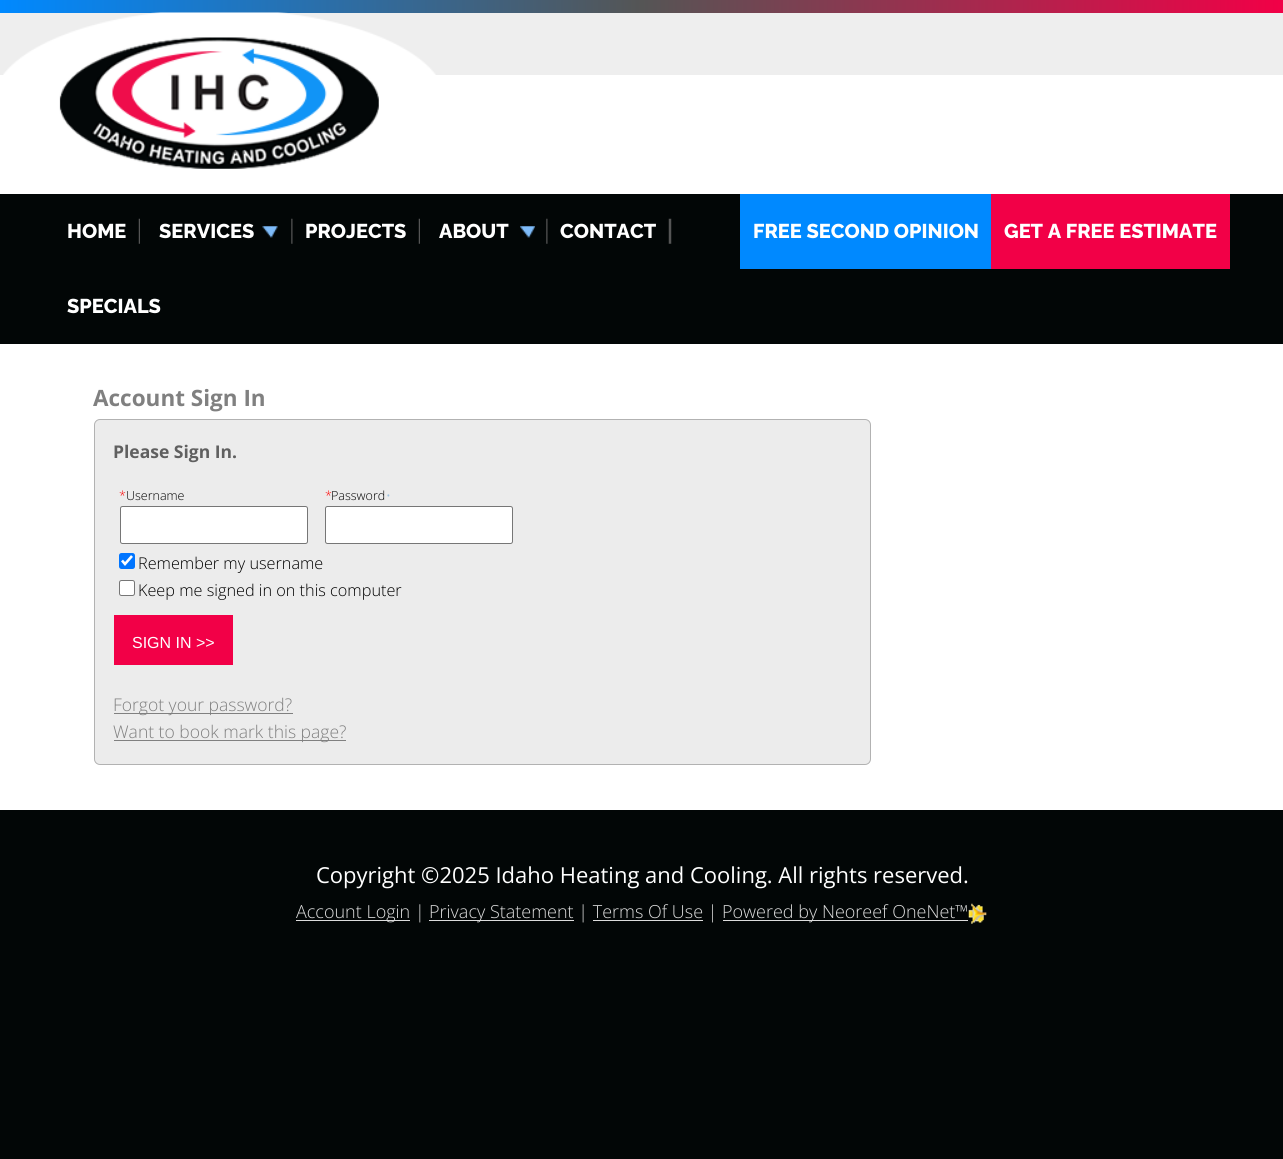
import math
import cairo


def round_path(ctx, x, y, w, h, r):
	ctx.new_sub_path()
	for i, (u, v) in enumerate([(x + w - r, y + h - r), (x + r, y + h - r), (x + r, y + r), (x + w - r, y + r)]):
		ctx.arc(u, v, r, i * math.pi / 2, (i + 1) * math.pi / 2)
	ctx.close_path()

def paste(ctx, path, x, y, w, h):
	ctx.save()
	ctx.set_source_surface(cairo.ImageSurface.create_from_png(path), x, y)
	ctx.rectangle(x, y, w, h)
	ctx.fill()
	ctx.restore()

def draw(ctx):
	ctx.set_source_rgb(0.008, 0.024, 0.024)
	ctx.paint()
	ctx.set_source_rgb(0.933, 0.933, 0.933)
	ctx.rectangle(0, 13, 1283, 62)
	ctx.fill()
	gradient = cairo.LinearGradient(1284, 6.3, 0, 6.2)
	gradient.add_color_stop_rgba(0, 0.949, 0, 0.278, 1)
	gradient.add_color_stop_rgba(0.5, 0.333, 0.333, 0.333, 1)
	gradient.add_color_stop_rgba(1, 0, 0.537, 1, 1)
	ctx.set_source(gradient)
	ctx.rectangle(0, 0, 1283, 13)
	ctx.fill()
	ctx.set_source_rgb(1, 1, 1)
	ctx.rectangle(0, 75, 1283, 119)
	ctx.fill()
	paste(ctx, 'media/1.png', 3, 12, 433, 157)
	ctx.select_font_face('Raleway ExtraBold')
	ctx.set_font_size(20)
	ctx.move_to(67, 238)
	ctx.show_text('HOME')
	paste(ctx, 'media/2.png', 138, 218, 2, 26)
	paste(ctx, 'media/3.png', 262, 226, 16, 12)
	ctx.move_to(159, 238)
	ctx.show_text('SERVICES')
	paste(ctx, 'media/4.png', 291, 218, 2, 26)
	ctx.move_to(305, 238)
	ctx.show_text('PROJECTS')
	paste(ctx, 'media/2.png', 418, 218, 2, 26)
	paste(ctx, 'media/5.png', 520, 226, 15, 12)
	ctx.move_to(439, 238)
	ctx.show_text('ABOUT')
	paste(ctx, 'media/4.png', 546, 218, 2, 26)
	ctx.move_to(560, 238)
	ctx.show_text('CONTACT')
	paste(ctx, 'media/2.png', 668, 218, 2, 26)
	paste(ctx, 'media/6.png', 670, 218, 2, 26)
	ctx.set_source_rgb(0, 0.537, 1)
	ctx.rectangle(740, 194, 251, 75)
	ctx.fill()
	ctx.set_source_rgb(1, 1, 1)
	ctx.move_to(753, 238)
	ctx.show_text('FREE SECOND OPINION')
	ctx.set_source_rgb(0.949, 0, 0.278)
	ctx.rectangle(991, 194, 239, 75)
	ctx.fill()
	ctx.set_source_rgb(1, 1, 1)
	ctx.move_to(1004, 238)
	ctx.show_text('GET A FREE ESTIMATE')
	ctx.move_to(67, 313)
	ctx.show_text('SPECIALS')
	ctx.rectangle(0, 344, 1283, 466)
	ctx.fill()
	ctx.select_font_face('Open Sans', cairo.FONT_SLANT_NORMAL, cairo.FONT_WEIGHT_BOLD)
	ctx.set_font_size(22.5)
	ctx.set_source_rgb(0.502, 0.502, 0.502)
	ctx.move_to(93, 406)
	ctx.show_text('Account Sign In')
	ctx.set_source_rgb(0.925, 0.925, 0.925)
	round_path(ctx, 94.5, 419.5, 776, 345, 5.5)
	ctx.fill_preserve()
	ctx.set_source_rgb(0.698, 0.698, 0.698)
	ctx.set_line_width(1)
	ctx.stroke()
	ctx.set_font_size(17.5)
	ctx.set_source_rgb(0.376, 0.376, 0.376)
	ctx.move_to(113, 458)
	ctx.show_text('Please Sign In.')
	ctx.select_font_face('Open Sans Light')
	ctx.set_font_size(12.5)
	ctx.set_source_rgb(1, 0, 0)
	ctx.move_to(119, 500)
	ctx.show_text('*')
	ctx.set_source_rgb(0, 0, 0)
	ctx.move_to(126, 500)
	ctx.show_text('Username')
	ctx.set_source_rgb(1, 1, 1)
	round_path(ctx, 120.5, 506.5, 187, 37, 2)
	ctx.fill_preserve()
	ctx.set_source_rgb(0.463, 0.463, 0.463)
	ctx.stroke()
	ctx.set_source_rgb(1, 0, 0)
	ctx.move_to(325, 500)
	ctx.show_text('*')
	ctx.set_source_rgb(0, 0, 0)
	ctx.move_to(331, 500)
	ctx.show_text('Password')
	ctx.set_source_rgb(0.62, 0.761, 0.875)
	ctx.move_to(386, 500)
	ctx.show_text('•')
	ctx.set_source_rgb(1, 1, 1)
	round_path(ctx, 325.5, 506.5, 187, 37, 2)
	ctx.fill_preserve()
	ctx.set_source_rgb(0.463, 0.463, 0.463)
	ctx.stroke()
	ctx.set_source_rgb(0, 0.459, 1)
	round_path(ctx, 119, 553, 16, 16, 2.5)
	ctx.fill()
	ctx.new_path()
	ctx.move_to(122, 560.5)
	ctx.line_to(125, 564)
	ctx.line_to(132, 556)
	ctx.set_source_rgb(1, 1, 1)
	ctx.set_line_width(2.6)
	ctx.stroke()
	ctx.set_font_size(16.25)
	ctx.set_source_rgb(0, 0, 0)
	ctx.move_to(138, 569)
	ctx.show_text('Remember my username')
	ctx.set_source_rgb(1, 1, 1)
	round_path(ctx, 119.5, 580.5, 15, 15, 2)
	ctx.fill_preserve()
	ctx.set_source_rgb(0.463, 0.463, 0.463)
	ctx.set_line_width(1)
	ctx.stroke()
	ctx.set_source_rgb(0, 0, 0)
	ctx.move_to(138, 596)
	ctx.show_text('Keep me signed in on this computer')
	ctx.set_source_rgb(0.949, 0, 0.278)
	ctx.rectangle(114, 615, 119, 50)
	ctx.fill()
	ctx.select_font_face('Liberation Sans')
	ctx.set_font_size(16)
	ctx.set_source_rgb(1, 1, 1)
	ctx.move_to(132, 648)
	ctx.show_text('SIGN IN >>')
	ctx.set_source_rgb(0.502, 0.502, 0.502)
	ctx.rectangle(114, 713, 179, 1)
	ctx.fill()
	ctx.select_font_face('Open Sans Light')
	ctx.set_font_size(17.5)
	ctx.move_to(113, 711)
	ctx.show_text('Forgot your password?')
	ctx.rectangle(114, 740, 232, 1)
	ctx.fill()
	ctx.move_to(113, 738)
	ctx.show_text('Want to book mark this page?')
	ctx.select_font_face('Open Sans')
	ctx.set_font_size(22)
	ctx.set_source_rgb(1, 1, 1)
	ctx.move_to(316, 883)
	ctx.show_text('Copyright ©2025 Idaho Heating and Cooling. All rights reserved.')
	ctx.set_source_rgb(0.867, 0.867, 0.867)
	ctx.rectangle(296, 920, 114, 1)
	ctx.fill()
	ctx.select_font_face('Open Sans Light')
	ctx.set_font_size(18)
	ctx.move_to(296, 918)
	ctx.show_text('Account Login |')
	ctx.rectangle(429, 920, 145, 1)
	ctx.fill()
	ctx.move_to(429, 918)
	ctx.show_text('Privacy Statement | Terms Of Use |')
	ctx.rectangle(593, 920, 110, 1)
	ctx.fill()
	ctx.rectangle(723, 920, 245, 1)
	ctx.fill()
	ctx.move_to(722, 918)
	ctx.show_text('Powered by Neoreef OneNet™')
	paste(ctx, 'media/7.png', 968, 903, 19, 21)


surface = cairo.ImageSurface(cairo.FORMAT_RGB24, 1283, 1159)
ctx = cairo.Context(surface)
options = cairo.FontOptions()
options.set_hint_metrics(cairo.HINT_METRICS_OFF)
options.set_hint_style(cairo.HINT_STYLE_NONE)
ctx.set_font_options(options)
ctx.set_miter_limit(4)
draw(ctx)
surface.write_to_png('image.png')
